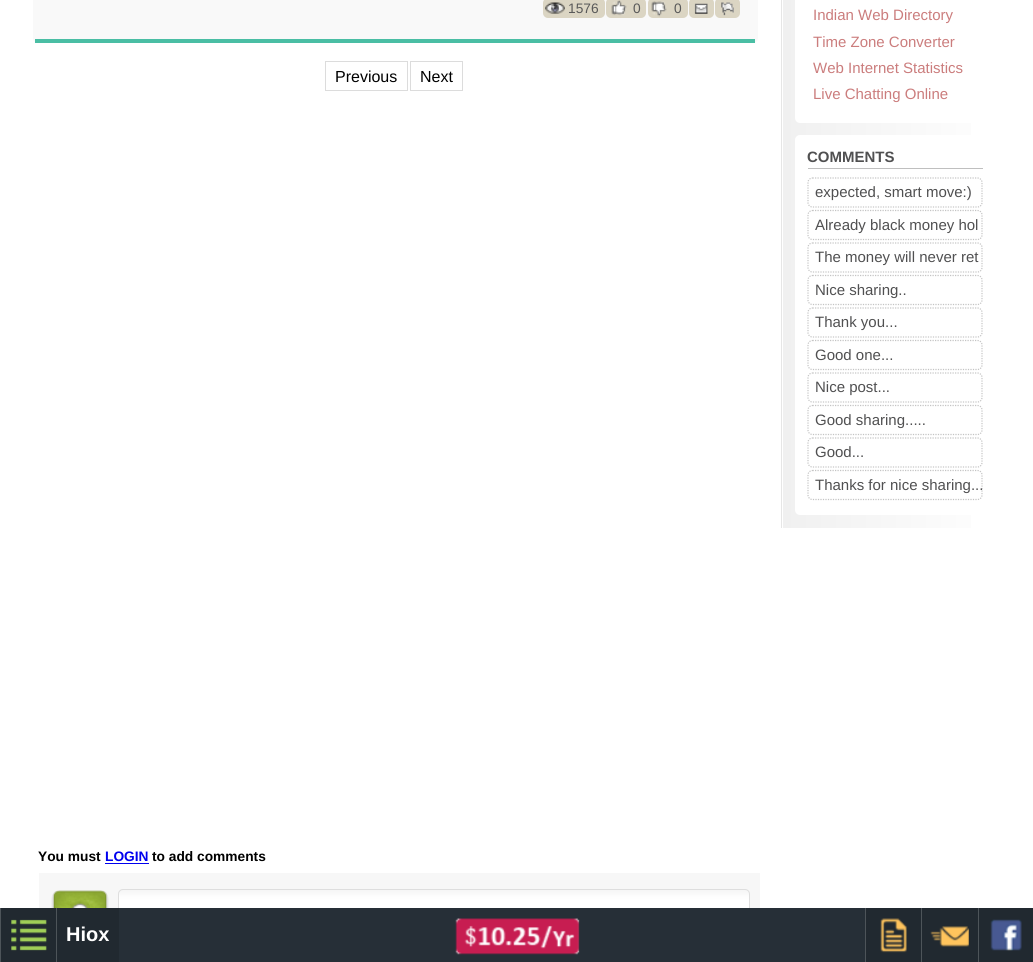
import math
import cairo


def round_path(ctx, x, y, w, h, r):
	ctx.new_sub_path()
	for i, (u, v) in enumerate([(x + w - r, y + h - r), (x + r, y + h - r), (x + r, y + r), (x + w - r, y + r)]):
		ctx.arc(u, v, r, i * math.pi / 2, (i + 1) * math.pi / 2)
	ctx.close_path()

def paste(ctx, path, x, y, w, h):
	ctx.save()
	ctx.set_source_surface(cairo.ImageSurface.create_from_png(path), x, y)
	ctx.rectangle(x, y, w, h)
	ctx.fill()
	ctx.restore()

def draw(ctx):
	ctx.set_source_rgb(1, 1, 1)
	ctx.paint()
	ctx.set_source_rgb(0.973, 0.973, 0.973)
	round_path(ctx, 33, -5, 725, 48, 5)
	ctx.fill()
	ctx.set_source_rgb(0.29, 0.745, 0.643)
	ctx.rectangle(35, 39, 720, 4)
	ctx.fill()
	ctx.set_source_rgb(0.859, 0.835, 0.765)
	round_path(ctx, 543, -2, 62, 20, 5)
	ctx.fill()
	paste(ctx, 'media/1.png', 545, 2, 20, 12)
	ctx.select_font_face('Liberation Sans')
	ctx.set_font_size(13.75)
	ctx.set_source_rgb(0.349, 0.349, 0.349)
	ctx.move_to(568, 13)
	ctx.show_text('1576')
	ctx.set_source_rgb(0.859, 0.835, 0.765)
	round_path(ctx, 606, -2, 40, 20, 5)
	ctx.fill()
	paste(ctx, 'media/2.png', 611, 0, 16, 16)
	ctx.set_source_rgb(0.349, 0.349, 0.349)
	ctx.move_to(633, 13)
	ctx.show_text('0')
	ctx.set_source_rgb(0.859, 0.835, 0.765)
	round_path(ctx, 648, -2, 40, 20, 5)
	ctx.fill()
	paste(ctx, 'media/3.png', 651, 1, 16, 16)
	ctx.set_source_rgb(0.349, 0.349, 0.349)
	ctx.move_to(674, 13)
	ctx.show_text('0')
	ctx.set_source_rgb(0.859, 0.835, 0.765)
	round_path(ctx, 689, -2, 25, 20, 5)
	ctx.fill()
	paste(ctx, 'media/4.png', 694, 3, 14, 11)
	round_path(ctx, 715, -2, 25, 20, 5)
	ctx.fill()
	paste(ctx, 'media/5.png', 721, 2, 13, 14)
	ctx.rectangle(325.5, 61.5, 82, 29)
	ctx.set_source_rgb(0.863, 0.863, 0.863)
	ctx.set_line_width(1)
	ctx.stroke()
	ctx.set_font_size(16)
	ctx.set_source_rgb(0, 0, 0)
	ctx.move_to(335, 82)
	ctx.show_text('Previous')
	ctx.rectangle(410.5, 61.5, 52, 29)
	ctx.set_source_rgb(0.863, 0.863, 0.863)
	ctx.stroke()
	ctx.set_source_rgb(0, 0, 0)
	ctx.move_to(420, 82)
	ctx.show_text('Next')
	ctx.select_font_face('Liberation Sans', cairo.FONT_SLANT_NORMAL, cairo.FONT_WEIGHT_BOLD)
	ctx.set_font_size(13.75)
	ctx.move_to(38, 861)
	ctx.show_text('You must')
	ctx.set_source_rgb(0, 0, 0.933)
	ctx.move_to(105, 861)
	ctx.show_text('LOGIN')
	ctx.rectangle(105, 863, 44, 1)
	ctx.fill()
	ctx.set_source_rgb(0, 0, 0)
	ctx.move_to(152, 861)
	ctx.show_text('to add comments')
	ctx.set_source_rgb(0.965, 0.965, 0.965)
	ctx.rectangle(39, 873, 721, 35)
	ctx.fill()
	paste(ctx, 'media/6.png', 51, 890, 58, 18)
	paste(ctx, 'media/7.png', 118, 890, 632, 18)
	round_path(ctx, 118.5, 889.5, 631, 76, 4.5)
	ctx.set_source_rgb(0.871, 0.871, 0.871)
	ctx.stroke()
	gradient = cairo.LinearGradient(783, 7.5, 1008, 7.5)
	gradient.add_color_stop_rgba(0, 0.941, 0.941, 0.941, 1)
	gradient.add_color_stop_rgba(1, 1, 1, 1, 1)
	ctx.set_source(gradient)
	ctx.rectangle(783, 0, 188, 528)
	ctx.fill()
	ctx.set_source_rgb(0.902, 0.902, 0.902)
	ctx.rectangle(781, 0, 1, 528)
	ctx.fill()
	ctx.set_source_rgb(1, 1, 1)
	round_path(ctx, 795, -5, 200, 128, 5)
	ctx.fill()
	ctx.select_font_face('Liberation Sans')
	ctx.set_font_size(15)
	ctx.set_source_rgb(0.796, 0.49, 0.49)
	for x, y, s in [
		(813, 20, 'Indian Web Directory'),
		(813, 47, 'Time Zone Converter'),
		(813, 73, 'Web Internet Statistics'),
		(813, 99, 'Live Chatting Online'),
	]:
		ctx.move_to(x, y)
		ctx.show_text(s)
	ctx.set_source_rgb(1, 1, 1)
	round_path(ctx, 795, 135, 200, 380, 5)
	ctx.fill()
	ctx.set_source_rgb(0.749, 0.749, 0.749)
	ctx.rectangle(808, 168, 175, 1)
	ctx.fill()
	ctx.select_font_face('Liberation Sans', cairo.FONT_SLANT_NORMAL, cairo.FONT_WEIGHT_BOLD)
	ctx.set_source_rgb(0.314, 0.314, 0.318)
	ctx.move_to(807, 162)
	ctx.show_text('COMMENTS')
	ctx.new_path()
	ctx.move_to(812.5, 178)
	ctx.line_to(977.5, 178)
	ctx.curve_to(980, 178, 982, 180, 982, 182.5)
	ctx.line_to(982, 202.5)
	ctx.curve_to(982, 205, 980, 207, 977.5, 207)
	ctx.line_to(812.5, 207)
	ctx.curve_to(810, 207, 808, 205, 808, 202.5)
	ctx.line_to(808, 182.5)
	ctx.curve_to(808, 180, 810, 178, 812.5, 178)
	ctx.close_path()
	ctx.set_source_rgb(0.769, 0.769, 0.769)
	ctx.set_line_width(1.2)
	ctx.set_dash([1.25, 1.25])
	ctx.stroke()
	ctx.select_font_face('Liberation Sans')
	ctx.set_source_rgb(0.314, 0.314, 0.318)
	ctx.move_to(815, 197)
	ctx.show_text('expected, smart move:)')
	ctx.new_path()
	ctx.move_to(812.5, 210.5)
	ctx.line_to(977.5, 210.5)
	ctx.curve_to(980, 210.5, 982, 212.5, 982, 215)
	ctx.line_to(982, 235)
	ctx.curve_to(982, 237.5, 980, 239.5, 977.5, 239.5)
	ctx.line_to(812.5, 239.5)
	ctx.curve_to(810, 239.5, 808, 237.5, 808, 235)
	ctx.line_to(808, 215)
	ctx.curve_to(808, 212.5, 810, 210.5, 812.5, 210.5)
	ctx.close_path()
	ctx.set_source_rgb(0.769, 0.769, 0.769)
	ctx.stroke()
	ctx.set_source_rgb(0.314, 0.314, 0.318)
	ctx.move_to(815, 230)
	ctx.show_text('Already black money hol')
	ctx.new_path()
	ctx.move_to(812.5, 243)
	ctx.line_to(977.5, 243)
	ctx.curve_to(980, 243, 982, 245, 982, 247.5)
	ctx.line_to(982, 267.5)
	ctx.curve_to(982, 270, 980, 272, 977.5, 272)
	ctx.line_to(812.5, 272)
	ctx.curve_to(810, 272, 808, 270, 808, 267.5)
	ctx.line_to(808, 247.5)
	ctx.curve_to(808, 245, 810, 243, 812.5, 243)
	ctx.close_path()
	ctx.set_source_rgb(0.769, 0.769, 0.769)
	ctx.stroke()
	ctx.set_source_rgb(0.314, 0.314, 0.318)
	ctx.move_to(815, 262)
	ctx.show_text('The money will never ret')
	ctx.new_path()
	ctx.move_to(812.5, 275.5)
	ctx.line_to(977.5, 275.5)
	ctx.curve_to(980, 275.5, 982, 277.5, 982, 280)
	ctx.line_to(982, 300)
	ctx.curve_to(982, 302.5, 980, 304.5, 977.5, 304.5)
	ctx.line_to(812.5, 304.5)
	ctx.curve_to(810, 304.5, 808, 302.5, 808, 300)
	ctx.line_to(808, 280)
	ctx.curve_to(808, 277.5, 810, 275.5, 812.5, 275.5)
	ctx.close_path()
	ctx.set_source_rgb(0.769, 0.769, 0.769)
	ctx.stroke()
	ctx.set_source_rgb(0.314, 0.314, 0.318)
	ctx.move_to(815, 295)
	ctx.show_text('Nice sharing..')
	ctx.new_path()
	ctx.move_to(812.5, 308)
	ctx.line_to(977.5, 308)
	ctx.curve_to(980, 308, 982, 310, 982, 312.5)
	ctx.line_to(982, 332.5)
	ctx.curve_to(982, 335, 980, 337, 977.5, 337)
	ctx.line_to(812.5, 337)
	ctx.curve_to(810, 337, 808, 335, 808, 332.5)
	ctx.line_to(808, 312.5)
	ctx.curve_to(808, 310, 810, 308, 812.5, 308)
	ctx.close_path()
	ctx.set_source_rgb(0.769, 0.769, 0.769)
	ctx.stroke()
	ctx.set_source_rgb(0.314, 0.314, 0.318)
	ctx.move_to(815, 327)
	ctx.show_text('Thank you...')
	ctx.new_path()
	ctx.move_to(812.5, 340.5)
	ctx.line_to(977.5, 340.5)
	ctx.curve_to(980, 340.5, 982, 342.5, 982, 345)
	ctx.line_to(982, 365)
	ctx.curve_to(982, 367.5, 980, 369.5, 977.5, 369.5)
	ctx.line_to(812.5, 369.5)
	ctx.curve_to(810, 369.5, 808, 367.5, 808, 365)
	ctx.line_to(808, 345)
	ctx.curve_to(808, 342.5, 810, 340.5, 812.5, 340.5)
	ctx.close_path()
	ctx.set_source_rgb(0.769, 0.769, 0.769)
	ctx.stroke()
	ctx.set_source_rgb(0.314, 0.314, 0.318)
	ctx.move_to(815, 360)
	ctx.show_text('Good one...')
	ctx.new_path()
	ctx.move_to(812.5, 373)
	ctx.line_to(977.5, 373)
	ctx.curve_to(980, 373, 982, 375, 982, 377.5)
	ctx.line_to(982, 397.5)
	ctx.curve_to(982, 400, 980, 402, 977.5, 402)
	ctx.line_to(812.5, 402)
	ctx.curve_to(810, 402, 808, 400, 808, 397.5)
	ctx.line_to(808, 377.5)
	ctx.curve_to(808, 375, 810, 373, 812.5, 373)
	ctx.close_path()
	ctx.set_source_rgb(0.769, 0.769, 0.769)
	ctx.stroke()
	ctx.set_source_rgb(0.314, 0.314, 0.318)
	ctx.move_to(815, 392)
	ctx.show_text('Nice post...')
	ctx.new_path()
	ctx.move_to(812.5, 405.5)
	ctx.line_to(977.5, 405.5)
	ctx.curve_to(980, 405.5, 982, 407.5, 982, 410)
	ctx.line_to(982, 430)
	ctx.curve_to(982, 432.5, 980, 434.5, 977.5, 434.5)
	ctx.line_to(812.5, 434.5)
	ctx.curve_to(810, 434.5, 808, 432.5, 808, 430)
	ctx.line_to(808, 410)
	ctx.curve_to(808, 407.5, 810, 405.5, 812.5, 405.5)
	ctx.close_path()
	ctx.set_source_rgb(0.769, 0.769, 0.769)
	ctx.stroke()
	ctx.set_source_rgb(0.314, 0.314, 0.318)
	ctx.move_to(815, 425)
	ctx.show_text('Good sharing.....')
	ctx.new_path()
	ctx.move_to(812.5, 438)
	ctx.line_to(977.5, 438)
	ctx.curve_to(980, 438, 982, 440, 982, 442.5)
	ctx.line_to(982, 462.5)
	ctx.curve_to(982, 465, 980, 467, 977.5, 467)
	ctx.line_to(812.5, 467)
	ctx.curve_to(810, 467, 808, 465, 808, 462.5)
	ctx.line_to(808, 442.5)
	ctx.curve_to(808, 440, 810, 438, 812.5, 438)
	ctx.close_path()
	ctx.set_source_rgb(0.769, 0.769, 0.769)
	ctx.stroke()
	ctx.set_source_rgb(0.314, 0.314, 0.318)
	ctx.move_to(815, 457)
	ctx.show_text('Good...')
	ctx.new_path()
	ctx.move_to(812.5, 470.5)
	ctx.line_to(977.5, 470.5)
	ctx.curve_to(980, 470.5, 982, 472.5, 982, 475)
	ctx.line_to(982, 495)
	ctx.curve_to(982, 497.5, 980, 499.5, 977.5, 499.5)
	ctx.line_to(812.5, 499.5)
	ctx.curve_to(810, 499.5, 808, 497.5, 808, 495)
	ctx.line_to(808, 475)
	ctx.curve_to(808, 472.5, 810, 470.5, 812.5, 470.5)
	ctx.close_path()
	ctx.set_source_rgb(0.769, 0.769, 0.769)
	ctx.stroke()
	ctx.set_source_rgb(0.314, 0.314, 0.318)
	ctx.move_to(815, 490)
	ctx.show_text('Thanks for nice sharing...')
	ctx.set_source_rgb(0.149, 0.184, 0.216)
	ctx.rectangle(119, 908, 746, 54)
	ctx.fill()
	ctx.set_source_rgb(0.129, 0.161, 0.188)
	ctx.rectangle(1, 908, 55, 54)
	ctx.fill()
	ctx.set_source_rgb(0.302, 0.329, 0.349)
	ctx.rectangle(0, 908, 1, 54)
	ctx.fill()
	paste(ctx, 'media/8.png', 11, 919, 36, 32)
	ctx.set_source_rgb(0.129, 0.161, 0.188)
	ctx.rectangle(57, 908, 62, 54)
	ctx.fill()
	ctx.set_source_rgb(0.302, 0.329, 0.349)
	ctx.rectangle(56, 908, 1, 54)
	ctx.fill()
	ctx.select_font_face('Liberation Sans', cairo.FONT_SLANT_NORMAL, cairo.FONT_WEIGHT_BOLD)
	ctx.set_font_size(20)
	ctx.set_source_rgb(1, 1, 1)
	ctx.move_to(66, 941)
	ctx.show_text('Hiox')
	paste(ctx, 'media/9.png', 455, 918, 125, 37)
	ctx.set_source_rgb(0.129, 0.161, 0.188)
	ctx.rectangle(866, 908, 55, 54)
	ctx.fill()
	ctx.set_source_rgb(0.302, 0.329, 0.349)
	ctx.rectangle(865, 908, 1, 54)
	ctx.fill()
	paste(ctx, 'media/10.png', 880, 918, 27, 35)
	ctx.set_source_rgb(0.129, 0.161, 0.188)
	ctx.rectangle(922, 908, 56, 54)
	ctx.fill()
	ctx.set_source_rgb(0.302, 0.329, 0.349)
	ctx.rectangle(921, 908, 1, 54)
	ctx.fill()
	paste(ctx, 'media/11.png', 930, 926, 39, 21)
	ctx.set_source_rgb(0.129, 0.161, 0.188)
	ctx.rectangle(979, 908, 54, 54)
	ctx.fill()
	ctx.set_source_rgb(0.302, 0.329, 0.349)
	ctx.rectangle(978, 908, 1, 54)
	ctx.fill()
	paste(ctx, 'media/12.png', 990, 919, 32, 32)


surface = cairo.ImageSurface(cairo.FORMAT_RGB24, 1033, 962)
ctx = cairo.Context(surface)
options = cairo.FontOptions()
options.set_hint_metrics(cairo.HINT_METRICS_OFF)
options.set_hint_style(cairo.HINT_STYLE_NONE)
ctx.set_font_options(options)
ctx.set_miter_limit(4)
draw(ctx)
surface.write_to_png('image.png')
